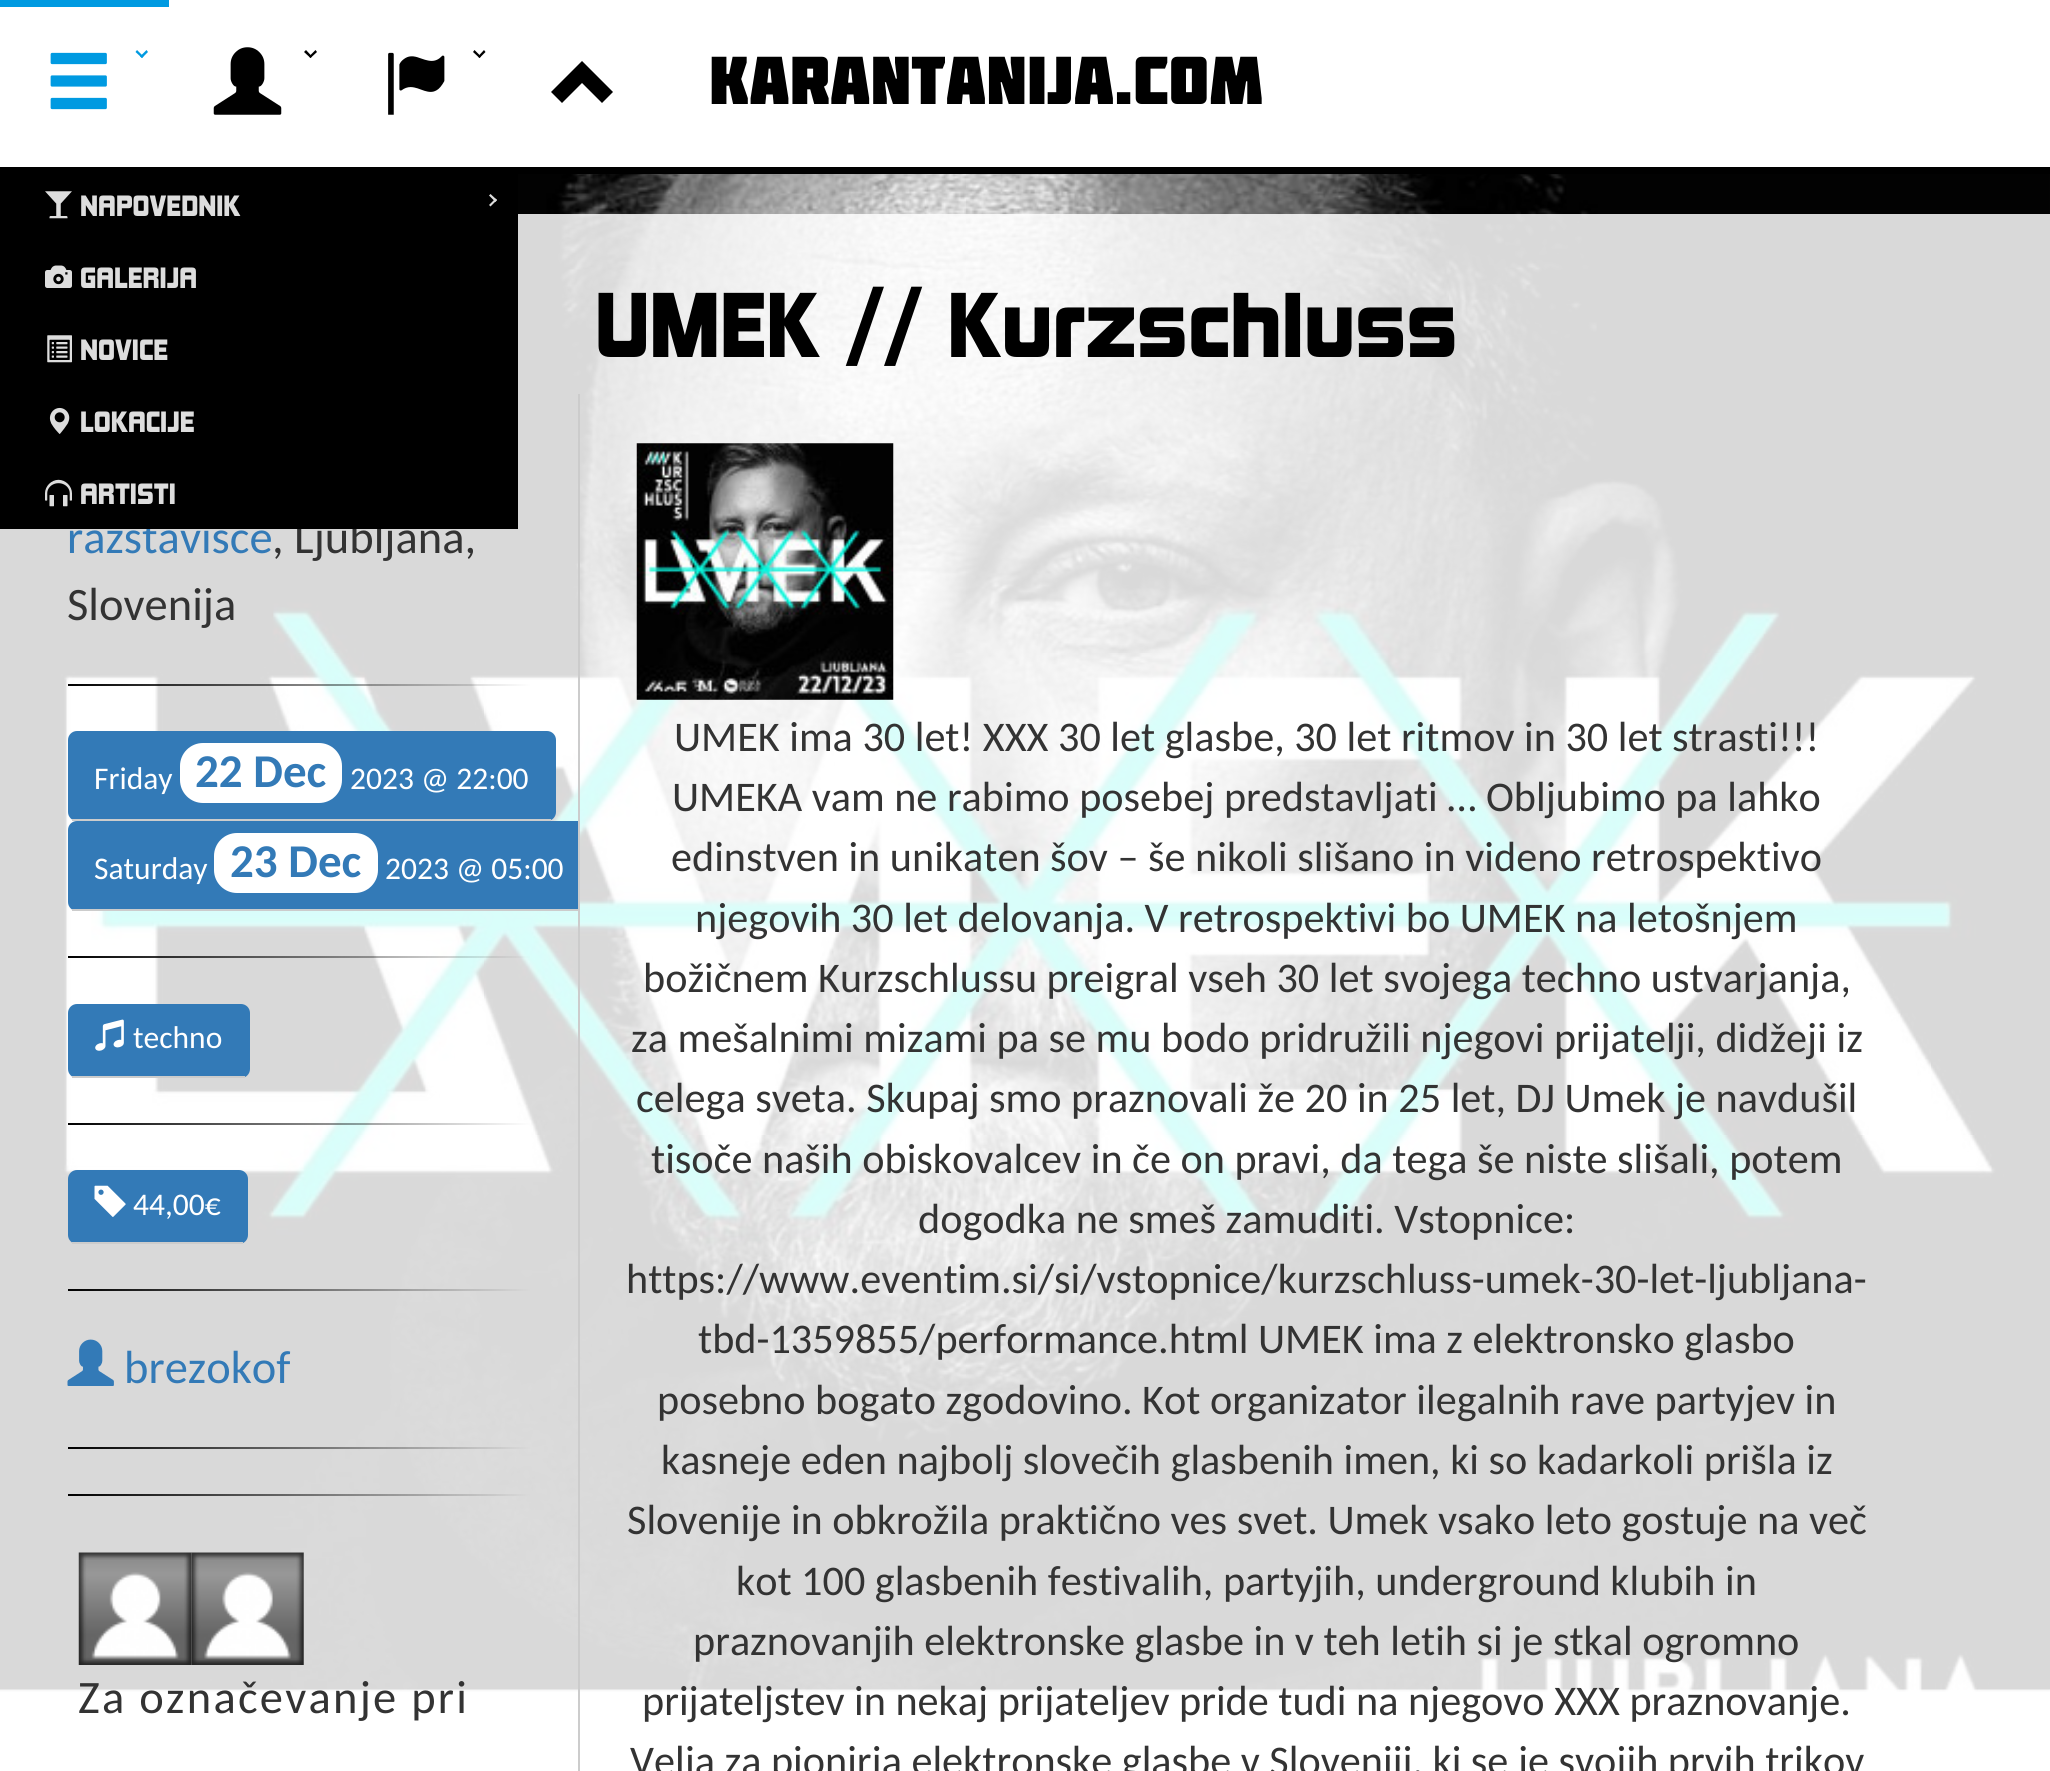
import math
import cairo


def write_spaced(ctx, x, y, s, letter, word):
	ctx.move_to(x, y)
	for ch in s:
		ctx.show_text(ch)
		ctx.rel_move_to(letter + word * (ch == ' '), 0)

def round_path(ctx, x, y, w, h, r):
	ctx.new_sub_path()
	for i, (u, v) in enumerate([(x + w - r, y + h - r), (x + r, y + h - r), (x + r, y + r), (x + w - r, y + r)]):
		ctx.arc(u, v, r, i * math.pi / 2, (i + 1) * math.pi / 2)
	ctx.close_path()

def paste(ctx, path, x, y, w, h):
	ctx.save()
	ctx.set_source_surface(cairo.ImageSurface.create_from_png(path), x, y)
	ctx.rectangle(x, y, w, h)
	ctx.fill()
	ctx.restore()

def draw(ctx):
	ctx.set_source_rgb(1, 1, 1)
	ctx.paint()
	ctx.set_source_rgb(0, 0, 0)
	ctx.rectangle(518, 167, 1532, 7)
	ctx.fill()
	ctx.set_source_rgb(0, 0.604, 0.882)
	ctx.rectangle(0, 0, 169, 7)
	ctx.fill()
	paste(ctx, 'media/1.png', 213, 47, 69, 68)
	ctx.set_source_rgb(0, 0, 0)
	ctx.new_path()
	ctx.move_to(315.5, 50)
	ctx.line_to(317, 52)
	ctx.line_to(310.5, 58)
	ctx.line_to(309, 56.5)
	ctx.close_path()
	ctx.fill()
	ctx.new_path()
	ctx.move_to(306, 50)
	ctx.line_to(312, 56.5)
	ctx.line_to(310.5, 58)
	ctx.line_to(304, 52)
	ctx.close_path()
	ctx.fill()
	paste(ctx, 'media/2.png', 388, 52, 57, 63)
	ctx.new_path()
	ctx.move_to(484, 50)
	ctx.line_to(485.5, 52)
	ctx.line_to(479.5, 58)
	ctx.line_to(478, 56.5)
	ctx.close_path()
	ctx.fill()
	ctx.new_path()
	ctx.move_to(474.5, 50)
	ctx.line_to(481, 56.5)
	ctx.line_to(479.5, 58)
	ctx.line_to(473, 52)
	ctx.close_path()
	ctx.fill()
	ctx.new_path()
	ctx.move_to(613, 92)
	ctx.line_to(602, 103)
	ctx.line_to(582, 83)
	ctx.line_to(562, 103)
	ctx.line_to(551, 92)
	ctx.line_to(582, 61)
	ctx.close_path()
	ctx.fill()
	ctx.select_font_face('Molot')
	ctx.set_font_size(67.5)
	ctx.move_to(709, 104)
	ctx.show_text('KARANTANIJA.COM')
	paste(ctx, 'media/3.png', 50, 52, 57, 58)
	ctx.set_source_rgb(0, 0.604, 0.882)
	ctx.new_path()
	ctx.move_to(146.5, 50)
	ctx.line_to(148, 52)
	ctx.line_to(142, 58)
	ctx.line_to(140, 56.5)
	ctx.close_path()
	ctx.fill()
	ctx.new_path()
	ctx.move_to(137, 50)
	ctx.line_to(143.5, 56.5)
	ctx.line_to(142, 58)
	ctx.line_to(135.5, 52)
	ctx.close_path()
	ctx.fill()
	paste(ctx, 'media/9.png', 0, 174, 2050, 1518)
	ctx.select_font_face('Carlito')
	ctx.set_font_size(46.5)
	ctx.set_source_rgb(0.2, 0.478, 0.718)
	ctx.move_to(67, 553)
	ctx.show_text('razstavišče')
	ctx.set_source_rgb(0.2, 0.2, 0.2)
	ctx.move_to(272, 553)
	ctx.show_text(', Ljubljana,')
	ctx.set_source_rgb(0, 0, 0)
	ctx.rectangle(0, 167, 518, 362)
	ctx.fill()
	paste(ctx, 'media/4.png', 45, 191, 27, 28)
	ctx.select_font_face('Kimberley')
	ctx.set_font_size(27)
	ctx.set_source_rgb(0.867, 0.867, 0.867)
	ctx.move_to(80, 216)
	ctx.show_text('NAPOVEDNIK')
	ctx.new_path()
	ctx.move_to(489, 195.5)
	ctx.line_to(490.5, 194)
	ctx.line_to(497, 200)
	ctx.line_to(495.5, 202)
	ctx.close_path()
	ctx.fill()
	ctx.new_path()
	ctx.move_to(489, 205)
	ctx.line_to(495.5, 198.5)
	ctx.line_to(497, 200)
	ctx.line_to(490.5, 206.5)
	ctx.close_path()
	ctx.fill()
	paste(ctx, 'media/5.png', 45, 265, 27, 23)
	ctx.move_to(80, 288)
	ctx.show_text('GALERIJA')
	paste(ctx, 'media/6.png', 47, 335, 25, 28)
	ctx.move_to(80, 360)
	ctx.show_text('NOVICE')
	paste(ctx, 'media/7.png', 49, 407, 21, 27)
	ctx.move_to(80, 432)
	ctx.show_text('LOKACIJE')
	paste(ctx, 'media/8.png', 45, 479, 27, 28)
	ctx.move_to(80, 504)
	ctx.show_text('ARTISTI')
	ctx.set_font_size(84.4)
	ctx.set_source_rgb(0, 0, 0)
	ctx.move_to(595, 357)
	ctx.show_text('UMEK // Kurzschluss')
	ctx.select_font_face('Carlito')
	ctx.set_font_size(46.5)
	ctx.set_source_rgb(0.2, 0.2, 0.2)
	ctx.move_to(67, 620)
	ctx.show_text('Slovenija')
	ctx.set_source_rgb(0.2, 0.478, 0.718)
	round_path(ctx, 68, 731, 488, 90, 9)
	ctx.fill()
	ctx.set_source_rgb(0.8, 0.8, 0.8)
	ctx.rectangle(72, 819, 479, 2)
	ctx.fill()
	ctx.set_font_size(31.5)
	ctx.set_source_rgb(1, 1, 1)
	ctx.move_to(94, 789)
	ctx.show_text('Friday')
	round_path(ctx, 180, 743, 162, 60, 23)
	ctx.fill()
	ctx.select_font_face('Carlito', cairo.FONT_SLANT_NORMAL, cairo.FONT_WEIGHT_BOLD)
	ctx.set_font_size(47)
	ctx.set_source_rgb(0.2, 0.478, 0.718)
	ctx.move_to(195, 787)
	ctx.show_text('22 Dec')
	ctx.select_font_face('Carlito')
	ctx.set_font_size(31.5)
	ctx.set_source_rgb(1, 1, 1)
	ctx.move_to(350, 789)
	ctx.show_text('2023 @ 22:00')
	ctx.set_source_rgb(0.2, 0.478, 0.718)
	ctx.new_path()
	ctx.move_to(77, 821)
	ctx.line_to(578, 821)
	ctx.line_to(578, 911)
	ctx.line_to(77, 911)
	ctx.curve_to(72, 911, 68, 907, 68, 902)
	ctx.line_to(68, 830)
	ctx.curve_to(68, 825, 72, 821, 77, 821)
	ctx.close_path()
	ctx.fill()
	ctx.set_source_rgb(0.8, 0.8, 0.8)
	ctx.rectangle(72, 909, 506, 2)
	ctx.fill()
	ctx.set_source_rgb(1, 1, 1)
	ctx.move_to(94, 879)
	ctx.show_text('Saturday')
	round_path(ctx, 214, 833, 164, 60, 23)
	ctx.fill()
	ctx.select_font_face('Carlito', cairo.FONT_SLANT_NORMAL, cairo.FONT_WEIGHT_BOLD)
	ctx.set_font_size(47)
	ctx.set_source_rgb(0.2, 0.478, 0.718)
	ctx.move_to(230, 877)
	ctx.show_text('23 Dec')
	ctx.select_font_face('Carlito')
	ctx.set_font_size(31.5)
	ctx.set_source_rgb(1, 1, 1)
	ctx.move_to(385, 879)
	ctx.show_text('2023 @ 05:00')
	ctx.set_source_rgb(0.2, 0.478, 0.718)
	round_path(ctx, 68, 1004, 182, 74, 9)
	ctx.fill()
	ctx.set_source_rgb(0.8, 0.8, 0.8)
	ctx.rectangle(72, 1076, 173, 2)
	ctx.fill()
	paste(ctx, 'media/10.png', 95, 1019, 29, 32)
	ctx.set_source_rgb(1, 1, 1)
	ctx.move_to(133, 1048)
	ctx.show_text('techno')
	ctx.set_source_rgb(0.2, 0.478, 0.718)
	round_path(ctx, 68, 1170, 180, 74, 9)
	ctx.fill()
	ctx.set_source_rgb(0.8, 0.8, 0.8)
	ctx.rectangle(72, 1242, 171, 2)
	ctx.fill()
	paste(ctx, 'media/11.png', 94, 1185, 32, 32)
	ctx.set_source_rgb(1, 1, 1)
	ctx.move_to(133, 1215)
	ctx.show_text('44,00€')
	paste(ctx, 'media/12.png', 67, 1339, 47, 47)
	ctx.set_font_size(46.5)
	ctx.set_source_rgb(0.2, 0.478, 0.718)
	ctx.move_to(124, 1383)
	ctx.show_text('brezokof')
	paste(ctx, 'media/13.png', 78, 1552, 114, 113)
	paste(ctx, 'media/14.png', 191, 1552, 113, 113)
	ctx.set_source_rgb(0.2, 0.2, 0.2)
	write_spaced(ctx, 78, 1713, 'Za označevanje pri', 2.25, 0)
	ctx.set_source_rgb(0.8, 0.8, 0.8)
	ctx.rectangle(578, 394, 2, 1377)
	ctx.fill()
	paste(ctx, 'media/15.png', 636, 443, 258, 257)
	ctx.set_font_size(42.2)
	ctx.set_source_rgb(0.2, 0.2, 0.2)
	for x, y, s in [
		(674, 751, 'UMEK ima 30 let! XXX 30 let glasbe, 30 let ritmov in 30 let strasti!!!'),
		(672, 811, 'UMEKA vam ne rabimo posebej predstavljati … Obljubimo pa lahko'),
		(671, 871, 'edinstven in unikaten šov – še nikoli slišano in videno retrospektivo'),
		(695, 932, 'njegovih 30 let delovanja. V retrospektivi bo UMEK na letošnjem'),
		(643, 992, 'božičnem Kurzschlussu preigral vseh 30 let svojega techno ustvarjanja,'),
		(631, 1052, 'za mešalnimi mizami pa se mu bodo pridružili njegovi prijatelji, didžeji iz'),
		(636, 1112, 'celega sveta. Skupaj smo praznovali že 20 in 25 let, DJ Umek je navdušil'),
		(651, 1173, 'tisoče naših obiskovalcev in če on pravi, da tega še niste slišali, potem'),
		(918, 1233, 'dogodka ne smeš zamuditi. Vstopnice:'),
		(626, 1293, 'https://www.eventim.si/si/vstopnice/kurzschluss-umek-30-let-ljubljana-'),
		(698, 1353, 'tbd-1359855/performance.html UMEK ima z elektronsko glasbo'),
		(657, 1414, 'posebno bogato zgodovino. Kot organizator ilegalnih rave partyjev in'),
		(661, 1474, 'kasneje eden najbolj slovečih glasbenih imen, ki so kadarkoli prišla iz'),
		(627, 1534, 'Slovenije in obkrožila praktično ves svet. Umek vsako leto gostuje na več'),
		(736, 1595, 'kot 100 glasbenih festivalih, partyjih, underground klubih in'),
		(693, 1655, 'praznovanjih elektronske glasbe in v teh letih si je stkal ogromno'),
		(642, 1715, 'prijateljstev in nekaj prijateljev pride tudi na njegovo XXX praznovanje.'),
		(630, 1775, 'Velja za pionirja elektronske glasbe v Sloveniji, ki se je svojih prvih trikov'),
	]:
		ctx.move_to(x, y)
		ctx.show_text(s)


surface = cairo.ImageSurface(cairo.FORMAT_RGB24, 2050, 1771)
ctx = cairo.Context(surface)
options = cairo.FontOptions()
options.set_hint_metrics(cairo.HINT_METRICS_OFF)
options.set_hint_style(cairo.HINT_STYLE_NONE)
ctx.set_font_options(options)
ctx.set_miter_limit(4)
draw(ctx)
surface.write_to_png('image.png')
